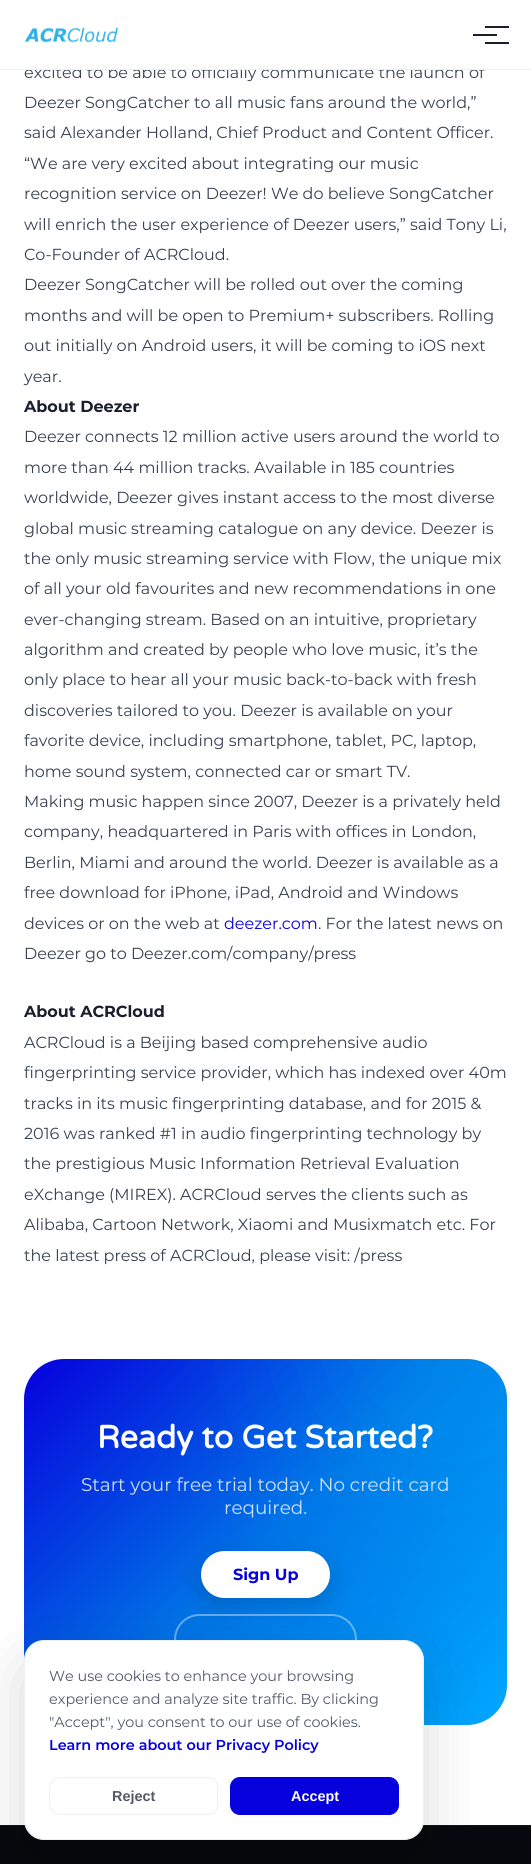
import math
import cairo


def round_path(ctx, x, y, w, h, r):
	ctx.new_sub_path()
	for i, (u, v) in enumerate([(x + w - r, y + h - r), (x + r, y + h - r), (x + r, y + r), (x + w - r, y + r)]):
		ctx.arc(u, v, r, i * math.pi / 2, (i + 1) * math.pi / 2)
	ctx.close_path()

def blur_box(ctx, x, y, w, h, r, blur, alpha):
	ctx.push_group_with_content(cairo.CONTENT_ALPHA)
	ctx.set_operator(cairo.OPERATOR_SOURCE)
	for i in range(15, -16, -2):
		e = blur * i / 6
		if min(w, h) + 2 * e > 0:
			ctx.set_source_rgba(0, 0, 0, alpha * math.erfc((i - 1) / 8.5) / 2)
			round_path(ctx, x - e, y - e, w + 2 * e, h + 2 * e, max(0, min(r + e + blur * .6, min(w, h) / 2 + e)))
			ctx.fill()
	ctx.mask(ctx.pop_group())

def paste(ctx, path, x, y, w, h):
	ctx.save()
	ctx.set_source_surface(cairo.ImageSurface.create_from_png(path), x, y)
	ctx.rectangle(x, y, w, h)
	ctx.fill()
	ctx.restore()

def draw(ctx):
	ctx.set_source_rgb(1, 1, 1)
	ctx.paint()
	ctx.select_font_face('Montserrat')
	ctx.set_font_size(16)
	ctx.set_source_rgb(0.216, 0.255, 0.318)
	ctx.move_to(24, 78)
	ctx.show_text('excited to be able to officially communicate the launch of')
	ctx.set_source_rgba(1, 1, 1, 0.95)
	ctx.rectangle(52, 66, 433, 3)
	ctx.fill()
	ctx.set_source_rgb(0.929, 0.937, 0.949)
	ctx.rectangle(0, 69, 531, 1)
	ctx.fill()
	paste(ctx, 'media/1.png', 24, 27, 94, 16)
	ctx.set_source_rgb(0.102, 0.118, 0.18)
	ctx.rectangle(473, 34, 24, 2)
	ctx.rectangle(485, 26, 24, 2)
	ctx.rectangle(485, 42, 24, 2)
	ctx.fill()
	ctx.set_source_rgb(0.216, 0.255, 0.318)
	for x, y, s in [
		(24, 108, 'Deezer SongCatcher to all music fans around the world,”'),
		(24, 138, 'said Alexander Holland, Chief Product and Content Officer.'),
		(24, 169, '“We are very excited about integrating our music'),
		(24, 199, 'recognition service on Deezer! We do believe SongCatcher'),
		(24, 230, 'will enrich the user experience of Deezer users,” said Tony Li,'),
		(24, 260, 'Co-Founder of ACRCloud.'),
		(24, 290, 'Deezer SongCatcher will be rolled out over the coming'),
		(24, 321, 'months and will be open to Premium+ subscribers. Rolling'),
		(24, 351, 'out initially on Android users, it will be coming to iOS next'),
		(24, 382, 'year.'),
	]:
		ctx.move_to(x, y)
		ctx.show_text(s)
	ctx.select_font_face('Montserrat', cairo.FONT_SLANT_NORMAL, cairo.FONT_WEIGHT_BOLD)
	ctx.set_source_rgb(0.102, 0.118, 0.18)
	ctx.move_to(24, 412)
	ctx.show_text('About Deezer')
	ctx.select_font_face('Montserrat')
	ctx.set_source_rgb(0.216, 0.255, 0.318)
	for x, y, s in [
		(24, 442, 'Deezer connects 12 million active users around the world to'),
		(24, 473, 'more than 44 million tracks. Available in 185 countries'),
		(24, 503, 'worldwide, Deezer gives instant access to the most diverse'),
		(24, 534, 'global music streaming catalogue on any device. Deezer is'),
		(24, 564, 'the only music streaming service with Flow, the unique mix'),
		(24, 594, 'of all your old favourites and new recommendations in one'),
		(24, 625, 'ever-changing stream. Based on an intuitive, proprietary'),
		(24, 655, 'algorithm and created by people who love music, it’s the'),
		(24, 685, 'only place to hear all your music back-to-back with fresh'),
		(24, 716, 'discoveries tailored to you. Deezer is available on your'),
		(24, 746, 'favorite device, including smartphone, tablet, PC, laptop,'),
		(24, 777, 'home sound system, connected car or smart TV.'),
		(24, 807, 'Making music happen since 2007, Deezer is a privately held'),
		(24, 837, 'company, headquartered in Paris with offices in London,'),
		(24, 868, 'Berlin, Miami and around the world. Deezer is available as a'),
		(24, 898, 'free download for iPhone, iPad, Android and Windows'),
		(24, 929, 'devices or on the web at'),
	]:
		ctx.move_to(x, y)
		ctx.show_text(s)
	ctx.set_source_rgb(0.027, 0, 0.867)
	ctx.move_to(224, 929)
	ctx.show_text('deezer.com')
	ctx.set_source_rgb(0.216, 0.255, 0.318)
	ctx.move_to(318, 929)
	ctx.show_text('. For the latest news on')
	ctx.move_to(24, 959)
	ctx.show_text('Deezer go to Deezer.com/company/press')
	ctx.select_font_face('Montserrat', cairo.FONT_SLANT_NORMAL, cairo.FONT_WEIGHT_BOLD)
	ctx.set_source_rgb(0.102, 0.118, 0.18)
	ctx.move_to(24, 1017)
	ctx.show_text('About ACRCloud')
	ctx.select_font_face('Montserrat')
	ctx.set_source_rgb(0.216, 0.255, 0.318)
	for x, y, s in [
		(24, 1048, 'ACRCloud is a Beijing based comprehensive audio'),
		(24, 1078, 'fingerprinting service provider, which has indexed over 40m'),
		(24, 1109, 'tracks in its music fingerprinting database, and for 2015 &'),
		(24, 1139, '2016 was ranked #1 in audio fingerprinting technology by'),
		(24, 1169, 'the prestigious Music Information Retrieval Evaluation'),
		(24, 1200, 'eXchange (MIREX). ACRCloud serves the clients such as'),
		(24, 1230, 'Alibaba, Cartoon Network, Xiaomi and Musixmatch etc. For'),
		(24, 1261, 'the latest press of ACRCloud, please visit: /press'),
	]:
		ctx.move_to(x, y)
		ctx.show_text(s)
	gradient = cairo.LinearGradient(53, 1330, 478, 1754)
	gradient.add_color_stop_rgba(0, 0.027, 0, 0.867, 1)
	gradient.add_color_stop_rgba(0.5, 0, 0.451, 0.902, 1)
	gradient.add_color_stop_rgba(1, 0, 0.659, 1, 1)
	ctx.set_source(gradient)
	round_path(ctx, 24, 1359, 483, 366, 40)
	ctx.fill()
	ctx.save()
	round_path(ctx, 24, 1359, 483, 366, 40)
	ctx.clip()
	ctx.set_source_rgb(0, 0.949, 1)
	blur_box(ctx, 304, 1176, 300, 300, 150, 80, 0.15)
	ctx.restore()
	ctx.select_font_face('Varela Round', cairo.FONT_SLANT_NORMAL, cairo.FONT_WEIGHT_BOLD)
	ctx.set_font_size(32)
	ctx.set_source_rgb(1, 1, 1)
	ctx.move_to(97, 1448)
	ctx.show_text('Ready to Get Started?')
	ctx.select_font_face('Montserrat')
	ctx.set_font_size(18.4)
	ctx.set_source_rgb(0.812, 0.882, 0.98)
	ctx.move_to(81, 1491)
	ctx.show_text('Start your free trial today. No credit card')
	ctx.move_to(224, 1514)
	ctx.show_text('required.')
	ctx.set_source_rgb(0, 0, 0)
	blur_box(ctx, 201, 1559, 129, 47, 23.5, 12, 0.15)
	ctx.set_source_rgb(1, 1, 1)
	round_path(ctx, 201, 1551, 129, 47, 23.5)
	ctx.fill()
	ctx.select_font_face('Montserrat', cairo.FONT_SLANT_NORMAL, cairo.FONT_WEIGHT_BOLD)
	ctx.set_font_size(16)
	ctx.set_source_rgb(0.027, 0, 0.867)
	ctx.move_to(233, 1580)
	ctx.show_text('Sign Up')
	round_path(ctx, 175, 1615, 181, 49, 24.5)
	ctx.set_source_rgba(1, 1, 1, 0.4)
	ctx.stroke()
	ctx.set_source_rgb(0.031, 0.035, 0.051)
	ctx.rectangle(0, 1826, 531, 38)
	ctx.fill()
	ctx.set_source_rgb(0.078, 0.082, 0.098)
	ctx.rectangle(0, 1825, 531, 1)
	ctx.fill()
	ctx.set_source_rgb(0, 0, 0)
	blur_box(ctx, 24, 1660, 400, 200, 20, 30, 0.15)
	ctx.set_source_rgb(1, 1, 1)
	round_path(ctx, 24.5, 1640.5, 399, 199, 19.5)
	ctx.fill_preserve()
	ctx.set_source_rgb(0.929, 0.937, 0.949)
	ctx.set_line_width(1)
	ctx.stroke()
	ctx.select_font_face('Montserrat')
	ctx.set_font_size(14.4)
	ctx.set_source_rgb(0.322, 0.345, 0.4)
	for x, y, s in [
		(49, 1681, 'We use cookies to enhance your browsing'),
		(49, 1704, 'experience and analyze site traffic. By clicking'),
		(49, 1727, '"Accept", you consent to our use of cookies.'),
	]:
		ctx.move_to(x, y)
		ctx.show_text(s)
	ctx.select_font_face('Montserrat SemiBold')
	ctx.set_source_rgb(0.027, 0, 0.867)
	ctx.move_to(49, 1750)
	ctx.show_text('Learn more about our Privacy Policy')
	round_path(ctx, 49.5, 1777.5, 168, 37, 9.5)
	ctx.set_source_rgb(0.929, 0.937, 0.949)
	ctx.stroke()
	ctx.select_font_face('Liberation Sans', cairo.FONT_SLANT_NORMAL, cairo.FONT_WEIGHT_BOLD)
	ctx.set_source_rgb(0.322, 0.345, 0.4)
	ctx.move_to(112, 1801)
	ctx.show_text('Reject')
	ctx.set_source_rgb(0.027, 0, 0.867)
	round_path(ctx, 230.5, 1777.5, 168, 37, 9.5)
	ctx.fill_preserve()
	ctx.stroke()
	ctx.set_source_rgb(1, 1, 1)
	ctx.move_to(291, 1801)
	ctx.show_text('Accept')


surface = cairo.ImageSurface(cairo.FORMAT_RGB24, 531, 1864)
ctx = cairo.Context(surface)
options = cairo.FontOptions()
options.set_hint_metrics(cairo.HINT_METRICS_OFF)
options.set_hint_style(cairo.HINT_STYLE_NONE)
ctx.set_font_options(options)
ctx.set_miter_limit(4)
draw(ctx)
surface.write_to_png('image.png')
